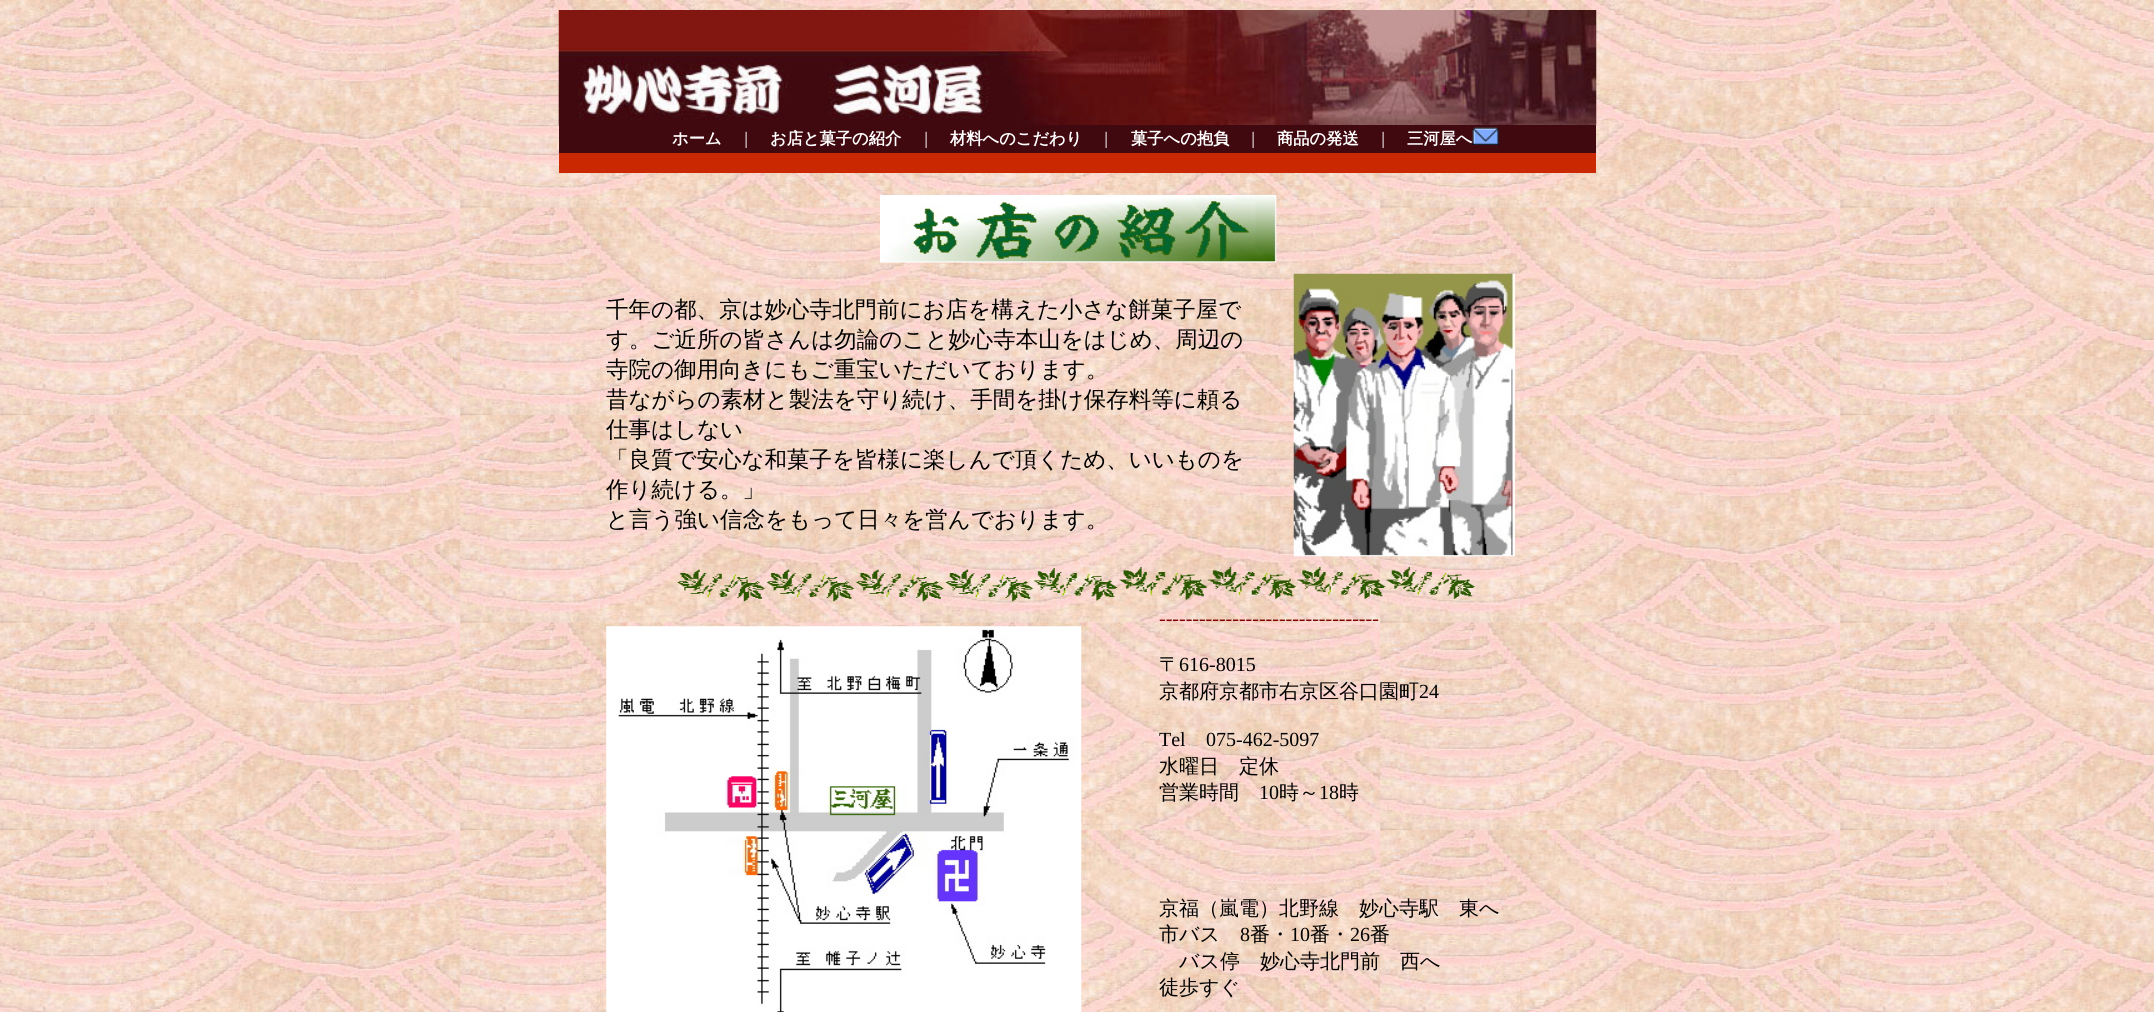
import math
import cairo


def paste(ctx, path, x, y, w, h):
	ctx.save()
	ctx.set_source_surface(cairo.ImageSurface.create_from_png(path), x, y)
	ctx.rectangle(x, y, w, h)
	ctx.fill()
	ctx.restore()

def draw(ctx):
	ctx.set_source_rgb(1, 1, 1)
	ctx.paint()
	paste(ctx, 'media/1.png', 0, 0, 2154, 1012)
	paste(ctx, 'media/2.png', 558, 10, 1039, 115)
	ctx.set_source_rgb(0.251, 0.035, 0.059)
	ctx.rectangle(559, 125, 1037, 28)
	ctx.fill()
	ctx.select_font_face('WenQuanYi Zen Hei', cairo.FONT_SLANT_NORMAL, cairo.FONT_WEIGHT_BOLD)
	ctx.set_font_size(16.25)
	ctx.set_source_rgb(1, 1, 1)
	ctx.move_to(672, 144)
	ctx.show_text('ホーム')
	ctx.select_font_face('WenQuanYi Zen Hei Medium')
	ctx.move_to(738, 144)
	ctx.show_text('｜')
	ctx.select_font_face('WenQuanYi Zen Hei', cairo.FONT_SLANT_NORMAL, cairo.FONT_WEIGHT_BOLD)
	ctx.move_to(770, 144)
	ctx.show_text('お店と菓子の紹介')
	ctx.select_font_face('WenQuanYi Zen Hei Medium')
	ctx.move_to(918, 144)
	ctx.show_text('｜')
	ctx.select_font_face('WenQuanYi Zen Hei', cairo.FONT_SLANT_NORMAL, cairo.FONT_WEIGHT_BOLD)
	ctx.move_to(950, 144)
	ctx.show_text('材料へのこだわり')
	ctx.select_font_face('WenQuanYi Zen Hei Medium')
	ctx.move_to(1098, 144)
	ctx.show_text('｜')
	ctx.select_font_face('WenQuanYi Zen Hei', cairo.FONT_SLANT_NORMAL, cairo.FONT_WEIGHT_BOLD)
	ctx.move_to(1131, 144)
	ctx.show_text('菓子への抱負')
	ctx.select_font_face('WenQuanYi Zen Hei Medium')
	ctx.move_to(1245, 144)
	ctx.show_text('｜')
	ctx.select_font_face('WenQuanYi Zen Hei', cairo.FONT_SLANT_NORMAL, cairo.FONT_WEIGHT_BOLD)
	ctx.move_to(1277, 144)
	ctx.show_text('商品の発送')
	ctx.select_font_face('WenQuanYi Zen Hei Medium')
	ctx.move_to(1375, 144)
	ctx.show_text('｜')
	ctx.select_font_face('WenQuanYi Zen Hei', cairo.FONT_SLANT_NORMAL, cairo.FONT_WEIGHT_BOLD)
	ctx.move_to(1407, 144)
	ctx.show_text('三河屋へ')
	paste(ctx, 'media/3.png', 1472, 127, 27, 18)
	ctx.set_source_rgb(0.792, 0.157, 0)
	ctx.rectangle(559, 153, 1037, 20)
	ctx.fill()
	paste(ctx, 'media/4.png', 880, 195, 397, 68)
	ctx.select_font_face('WenQuanYi Zen Hei Medium')
	ctx.set_font_size(22.5)
	ctx.set_source_rgb(0, 0, 0)
	for x, y, s in [
		(606, 317, '千年の都、京は妙心寺北門前にお店を構えた小さな餅菓子屋で'),
		(606, 347, 'す。ご近所の皆さんは勿論のこと妙心寺本山をはじめ、周辺の'),
		(606, 377, '寺院の御用向きにもご重宝いただいております。'),
		(606, 407, '昔ながらの素材と製法を守り続け、手間を掛け保存料等に頼る'),
		(606, 437, '仕事はしない'),
		(606, 467, '「良質で安心な和菓子を皆様に楽しんで頂くため、いいものを'),
		(606, 497, '作り続ける。」'),
		(606, 527, 'と言う強い信念をもって日々を営んでおります。'),
	]:
		ctx.move_to(x, y)
		ctx.show_text(s)
	paste(ctx, 'media/5.png', 1293, 273, 222, 284)
	paste(ctx, 'media/6.png', 677, 567, 798, 35)
	paste(ctx, 'media/7.png', 606, 626, 476, 386)
	ctx.select_font_face('Liberation Serif')
	ctx.set_font_size(20)
	ctx.set_source_rgb(0.502, 0, 0)
	ctx.move_to(1159, 625)
	ctx.show_text('---------------------------------')
	ctx.select_font_face('WenQuanYi Zen Hei Medium')
	ctx.set_source_rgb(0, 0, 0)
	ctx.move_to(1159, 671)
	ctx.show_text('〒')
	ctx.select_font_face('Liberation Serif')
	ctx.move_to(1179, 671)
	ctx.show_text('616-8015')
	ctx.select_font_face('WenQuanYi Zen Hei Medium')
	ctx.move_to(1159, 698)
	ctx.show_text('京都府京都市右京区谷口園町')
	ctx.select_font_face('Liberation Serif')
	for x, y, s in [
		(1419, 698, '24'),
		(1159, 746, 'Tel'),
		(1206, 746, '075-462-5097'),
	]:
		ctx.move_to(x, y)
		ctx.show_text(s)
	ctx.select_font_face('WenQuanYi Zen Hei Medium')
	ctx.move_to(1159, 773)
	ctx.show_text('水曜日　定休')
	ctx.move_to(1159, 799)
	ctx.show_text('営業時間')
	ctx.select_font_face('Liberation Serif')
	ctx.move_to(1259, 799)
	ctx.show_text('10')
	ctx.select_font_face('WenQuanYi Zen Hei Medium')
	ctx.move_to(1279, 799)
	ctx.show_text('時～')
	ctx.select_font_face('Liberation Serif')
	ctx.move_to(1319, 799)
	ctx.show_text('18')
	ctx.select_font_face('WenQuanYi Zen Hei Medium')
	for x, y, s in [
		(1339, 799, '時'),
		(1159, 915, '京福（嵐電）北野線　妙心寺駅　東へ'),
		(1159, 941, '市バス'),
	]:
		ctx.move_to(x, y)
		ctx.show_text(s)
	ctx.select_font_face('Liberation Serif')
	ctx.move_to(1240, 941)
	ctx.show_text('8')
	ctx.select_font_face('WenQuanYi Zen Hei Medium')
	ctx.move_to(1250, 941)
	ctx.show_text('番・')
	ctx.select_font_face('Liberation Serif')
	ctx.move_to(1290, 941)
	ctx.show_text('10')
	ctx.select_font_face('WenQuanYi Zen Hei Medium')
	ctx.move_to(1310, 941)
	ctx.show_text('番・')
	ctx.select_font_face('Liberation Serif')
	ctx.move_to(1350, 941)
	ctx.show_text('26')
	ctx.select_font_face('WenQuanYi Zen Hei Medium')
	for x, y, s in [
		(1370, 941, '番'),
		(1179, 968, 'バス停　妙心寺北門前　西へ'),
		(1159, 994, '徒歩すぐ'),
	]:
		ctx.move_to(x, y)
		ctx.show_text(s)


surface = cairo.ImageSurface(cairo.FORMAT_RGB24, 2154, 1012)
ctx = cairo.Context(surface)
options = cairo.FontOptions()
options.set_hint_metrics(cairo.HINT_METRICS_OFF)
options.set_hint_style(cairo.HINT_STYLE_NONE)
ctx.set_font_options(options)
ctx.set_miter_limit(4)
draw(ctx)
surface.write_to_png('image.png')
